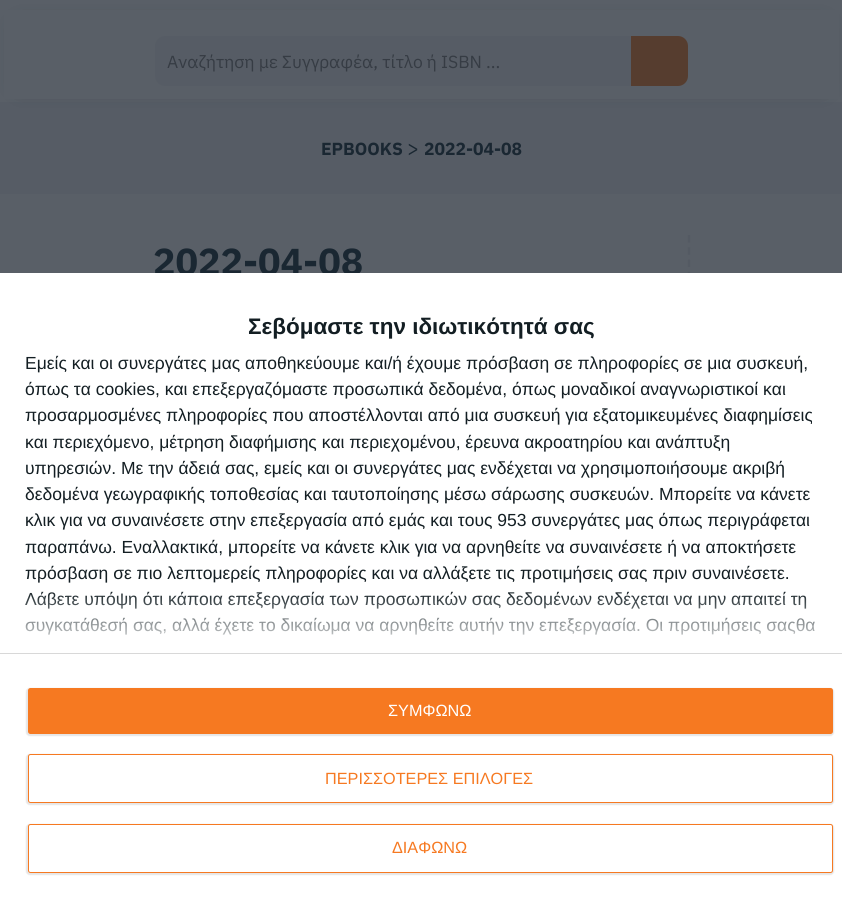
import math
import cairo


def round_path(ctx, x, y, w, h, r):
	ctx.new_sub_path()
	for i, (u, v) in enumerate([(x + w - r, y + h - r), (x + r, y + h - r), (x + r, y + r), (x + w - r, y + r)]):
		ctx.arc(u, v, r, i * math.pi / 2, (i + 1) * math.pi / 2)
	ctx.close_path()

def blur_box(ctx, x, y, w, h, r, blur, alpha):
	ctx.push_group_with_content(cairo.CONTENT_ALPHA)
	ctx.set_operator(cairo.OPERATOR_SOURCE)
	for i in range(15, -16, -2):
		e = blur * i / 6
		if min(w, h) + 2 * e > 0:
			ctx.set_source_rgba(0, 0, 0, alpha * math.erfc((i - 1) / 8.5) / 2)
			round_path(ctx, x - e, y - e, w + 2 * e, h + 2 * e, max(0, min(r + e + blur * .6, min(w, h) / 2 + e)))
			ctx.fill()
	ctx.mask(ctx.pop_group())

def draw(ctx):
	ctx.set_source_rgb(0.349, 0.373, 0.404)
	ctx.paint()
	ctx.set_source_rgb(0.337, 0.361, 0.396)
	ctx.rectangle(0, 102, 842, 92)
	ctx.fill()
	ctx.set_source_rgb(0.098, 0.122, 0.153)
	blur_box(ctx, 20, 26, 803, 60, 0, 9, 1)
	ctx.set_source_rgb(0.349, 0.373, 0.404)
	ctx.rectangle(4, 10, 835, 89)
	ctx.fill()
	ctx.set_source_rgb(0.337, 0.361, 0.396)
	ctx.new_path()
	ctx.move_to(165, 36)
	ctx.line_to(633, 36)
	ctx.line_to(633, 86)
	ctx.line_to(165, 86)
	ctx.curve_to(159.5, 86, 155, 81.5, 155, 76)
	ctx.line_to(155, 46)
	ctx.curve_to(155, 40.5, 159.5, 36, 165, 36)
	ctx.close_path()
	ctx.fill()
	ctx.select_font_face('IBM Plex Sans')
	ctx.set_font_size(17.5)
	ctx.set_source_rgb(0.212, 0.235, 0.267)
	ctx.move_to(167, 68)
	ctx.show_text('Αναζήτηση με Συγγραφέα, τίτλο ή ISBN ...')
	ctx.set_source_rgb(0.337, 0.239, 0.184)
	ctx.new_path()
	ctx.move_to(631, 36)
	ctx.line_to(678, 36)
	ctx.curve_to(683.5, 36, 688, 40.5, 688, 46)
	ctx.line_to(688, 76)
	ctx.curve_to(688, 81.5, 683.5, 86, 678, 86)
	ctx.line_to(631, 86)
	ctx.close_path()
	ctx.fill()
	ctx.select_font_face('IBM Plex Sans', cairo.FONT_SLANT_NORMAL, cairo.FONT_WEIGHT_BOLD)
	ctx.set_source_rgb(0.102, 0.153, 0.196)
	ctx.move_to(321, 155)
	ctx.show_text('EPBOOKS')
	ctx.select_font_face('IBM Plex Sans')
	ctx.set_font_size(20)
	ctx.move_to(407, 155)
	ctx.show_text('>')
	ctx.select_font_face('IBM Plex Sans', cairo.FONT_SLANT_NORMAL, cairo.FONT_WEIGHT_BOLD)
	ctx.set_font_size(17.5)
	ctx.move_to(424, 155)
	ctx.show_text('2022-04-08')
	ctx.new_path()
	ctx.move_to(689, 235)
	ctx.line_to(689, 574)
	ctx.set_source_rgb(0.329, 0.353, 0.388)
	ctx.set_line_width(2.5)
	ctx.set_dash([7.5, 4.76])
	ctx.stroke()
	ctx.set_font_size(37.5)
	ctx.set_source_rgb(0.102, 0.153, 0.196)
	ctx.move_to(153, 275)
	ctx.show_text('2022-04-08')
	ctx.set_source_rgb(1, 1, 1)
	ctx.rectangle(0, 273, 842, 636)
	ctx.fill()
	ctx.select_font_face('Liberation Sans', cairo.FONT_SLANT_NORMAL, cairo.FONT_WEIGHT_BOLD)
	ctx.set_font_size(22.5)
	ctx.set_source_rgb(0.078, 0.118, 0.137)
	ctx.move_to(248, 334)
	ctx.show_text('Σεβόμαστε την ιδιωτικότητά σας')
	ctx.select_font_face('Liberation Sans')
	ctx.set_font_size(17.5)
	for x, y, s in [
		(25, 369, 'Εμείς και οι συνεργάτες μας αποθηκεύουμε και/ή έχουμε πρόσβαση σε πληροφορίες σε μια συσκευή,'),
		(25, 395, 'όπως τα cookies, και επεξεργαζόμαστε προσωπικά δεδομένα, όπως μοναδικοί αναγνωριστικοί και'),
		(25, 421, 'προσαρμοσμένες πληροφορίες που αποστέλλονται από μια συσκευή για εξατομικευμένες διαφημίσεις'),
		(25, 448, 'και περιεχόμενο, μέτρηση διαφήμισης και περιεχομένου, έρευνα ακροατηρίου και ανάπτυξη'),
		(25, 474, 'υπηρεσιών. Με την άδειά σας, εμείς και οι συνεργάτες μας ενδέχεται να χρησιμοποιήσουμε ακριβή'),
		(25, 500, 'δεδομένα γεωγραφικής τοποθεσίας και ταυτοποίησης μέσω σάρωσης συσκευών. Μπορείτε να κάνετε'),
		(25, 526, 'κλικ για να συναινέσετε στην επεξεργασία από εμάς και τους 953 συνεργάτες μας όπως περιγράφεται'),
		(25, 553, 'παραπάνω. Εναλλακτικά, μπορείτε να κάνετε κλικ για να αρνηθείτε να συναινέσετε ή να αποκτήσετε'),
		(25, 579, 'πρόσβαση σε πιο λεπτομερείς πληροφορίες και να αλλάξετε τις προτιμήσεις σας πριν συναινέσετε.'),
		(25, 605, 'Λάβετε υπόψη ότι κάποια επεξεργασία των προσωπικών σας δεδομένων ενδέχεται να μην απαιτεί τη'),
		(25, 631, 'συγκατάθεσή σας, αλλά έχετε το δικαίωμα να αρνηθείτε αυτήν την επεξεργασία. Οι προτιμήσεις σαςθα'),
	]:
		ctx.move_to(x, y)
		ctx.show_text(s)
	ctx.set_source_rgb(0.847, 0.847, 0.847)
	ctx.rectangle(0, 653, 842, 1)
	ctx.fill()
	gradient = cairo.LinearGradient(421, 653, 421, 590)
	gradient.add_color_stop_rgba(0, 1, 1, 1, 1)
	gradient.add_color_stop_rgba(1, 1, 1, 1, 0)
	ctx.set_source(gradient)
	ctx.rectangle(25, 592, 790, 43)
	ctx.fill()
	ctx.set_source_rgb(0, 0, 0)
	blur_box(ctx, 26, 688, 808, 48, 4, 0.5, 0.1)
	ctx.set_source_rgb(0.961, 0.475, 0.129)
	round_path(ctx, 28, 688, 805, 46, 2.5)
	ctx.fill()
	ctx.set_font_size(16.25)
	ctx.set_source_rgb(1, 1, 1)
	ctx.move_to(388, 716)
	ctx.show_text('ΣΥΜΦΩΝΩ')
	ctx.set_source_rgb(0, 0, 0)
	blur_box(ctx, 26, 754, 808, 51, 4, 0.5, 0.1)
	ctx.set_source_rgb(1, 1, 1)
	round_path(ctx, 28.5, 754.5, 804, 48, 2)
	ctx.fill_preserve()
	ctx.set_source_rgb(0.961, 0.475, 0.129)
	ctx.set_line_width(1)
	ctx.set_dash([])
	ctx.stroke()
	ctx.move_to(325, 784)
	ctx.show_text('ΠΕΡΙΣΣΟΤΕΡΕΣ ΕΠΙΛΟΓΕΣ')
	ctx.set_source_rgb(0, 0, 0)
	blur_box(ctx, 26, 824, 808, 51, 4, 0.5, 0.1)
	ctx.set_source_rgb(1, 1, 1)
	round_path(ctx, 28.5, 824.5, 804, 48, 2)
	ctx.fill_preserve()
	ctx.set_source_rgb(0.961, 0.475, 0.129)
	ctx.stroke()
	ctx.move_to(392, 853)
	ctx.show_text('ΔΙΑΦΩΝΩ')


surface = cairo.ImageSurface(cairo.FORMAT_RGB24, 842, 909)
ctx = cairo.Context(surface)
options = cairo.FontOptions()
options.set_hint_metrics(cairo.HINT_METRICS_OFF)
options.set_hint_style(cairo.HINT_STYLE_NONE)
ctx.set_font_options(options)
ctx.set_miter_limit(4)
draw(ctx)
surface.write_to_png('image.png')
